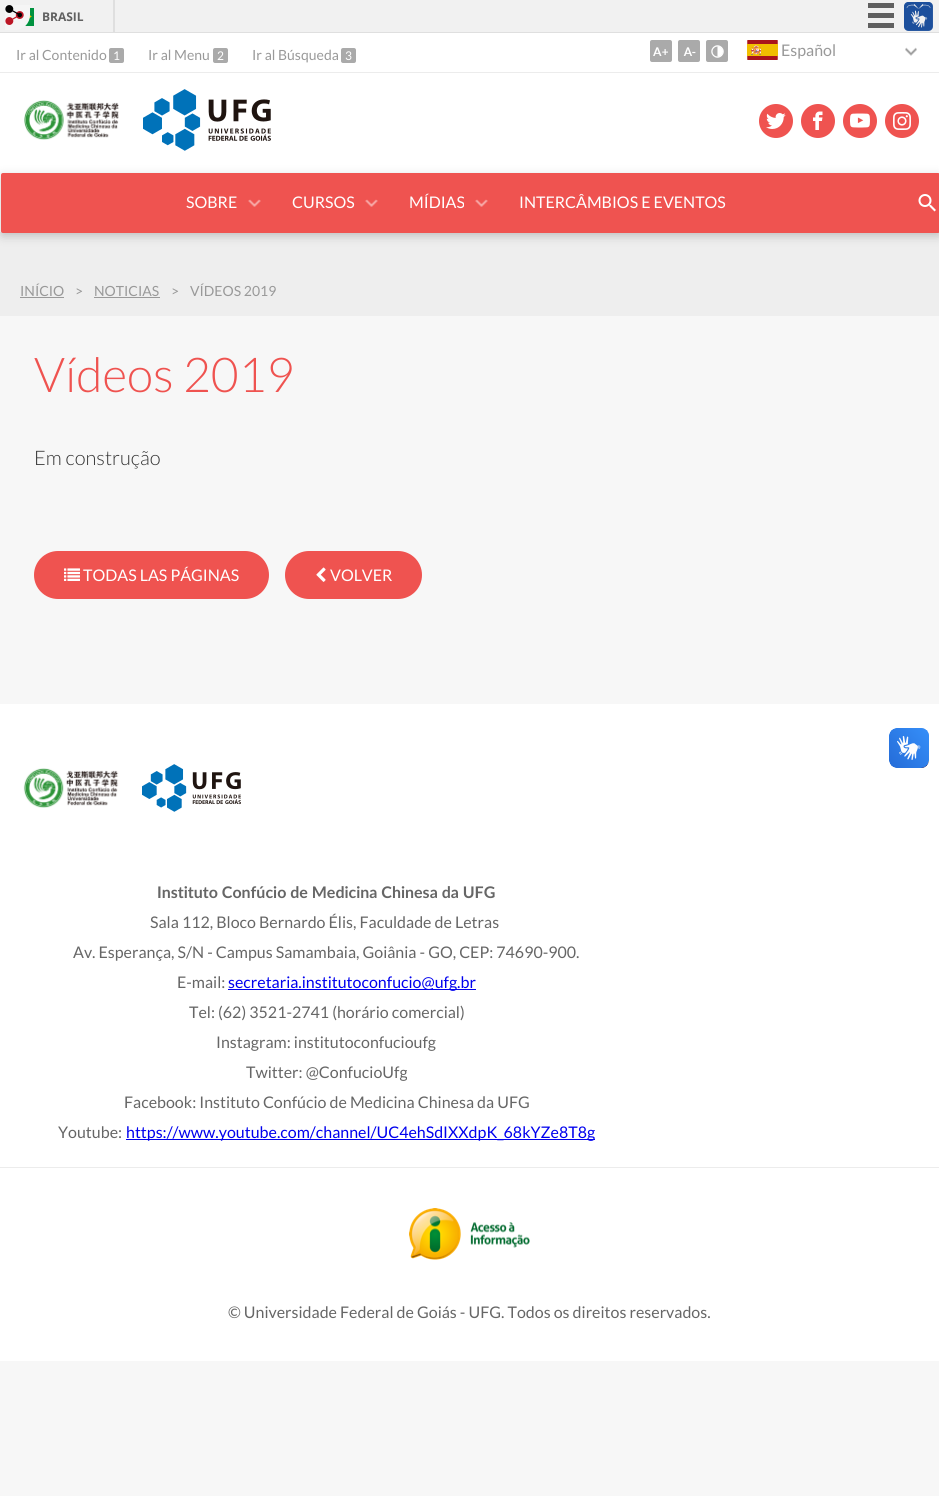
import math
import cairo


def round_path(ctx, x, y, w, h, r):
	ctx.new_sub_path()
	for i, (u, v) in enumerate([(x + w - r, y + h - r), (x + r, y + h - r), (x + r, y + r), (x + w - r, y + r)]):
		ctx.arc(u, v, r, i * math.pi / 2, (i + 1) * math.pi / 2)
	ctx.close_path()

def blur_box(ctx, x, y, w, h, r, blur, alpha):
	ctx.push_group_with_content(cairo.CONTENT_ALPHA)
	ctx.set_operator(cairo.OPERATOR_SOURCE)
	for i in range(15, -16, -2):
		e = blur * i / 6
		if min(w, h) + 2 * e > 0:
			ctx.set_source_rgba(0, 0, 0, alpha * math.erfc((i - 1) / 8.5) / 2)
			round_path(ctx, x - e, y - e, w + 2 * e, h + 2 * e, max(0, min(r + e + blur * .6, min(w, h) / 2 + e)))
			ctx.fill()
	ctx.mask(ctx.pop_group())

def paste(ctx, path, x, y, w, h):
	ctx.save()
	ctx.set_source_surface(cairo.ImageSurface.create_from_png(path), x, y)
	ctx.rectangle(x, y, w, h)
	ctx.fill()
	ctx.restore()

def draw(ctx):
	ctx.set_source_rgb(0.965, 0.965, 0.965)
	ctx.paint()
	ctx.set_source_rgb(0.945, 0.945, 0.945)
	ctx.rectangle(0, 0, 939, 32)
	ctx.fill()
	paste(ctx, 'media/2.png', 25, 8, 9, 18)
	paste(ctx, 'media/1.png', 5, 5, 25, 25)
	ctx.set_source_rgb(0.875, 0.875, 0.875)
	ctx.rectangle(0, 32, 939, 1)
	ctx.fill()
	ctx.rectangle(113, 0, 2, 32)
	ctx.fill()
	ctx.select_font_face('Open Sans', cairo.FONT_SLANT_NORMAL, cairo.FONT_WEIGHT_BOLD)
	ctx.set_font_size(12)
	ctx.set_source_rgb(0.376, 0.376, 0.376)
	ctx.move_to(42, 21)
	ctx.show_text('BRASIL')
	ctx.rectangle(868, 3, 26, 5)
	ctx.rectangle(868, 13, 26, 5)
	ctx.rectangle(868, 23, 26, 5)
	ctx.fill()
	paste(ctx, 'media/3.png', 904, 2, 29, 29)
	ctx.set_source_rgb(1, 1, 1)
	ctx.rectangle(0, 33, 939, 39)
	ctx.fill()
	ctx.set_source_rgb(0.925, 0.925, 0.925)
	ctx.rectangle(0, 72, 939, 1)
	ctx.fill()
	ctx.select_font_face('Lato')
	ctx.set_font_size(14)
	ctx.set_source_rgb(0.6, 0.6, 0.6)
	ctx.move_to(16, 60)
	ctx.show_text('Ir al Contenido')
	ctx.set_source_rgb(0.667, 0.667, 0.667)
	round_path(ctx, 109, 48, 15, 15, 2)
	ctx.fill()
	ctx.set_font_size(12)
	ctx.set_source_rgb(1, 1, 1)
	ctx.move_to(113, 60)
	ctx.show_text('1')
	ctx.set_font_size(14)
	ctx.set_source_rgb(0.6, 0.6, 0.6)
	ctx.move_to(148, 60)
	ctx.show_text('Ir al Menu')
	ctx.set_source_rgb(0.667, 0.667, 0.667)
	round_path(ctx, 213, 48, 15, 15, 2)
	ctx.fill()
	ctx.set_font_size(12)
	ctx.set_source_rgb(1, 1, 1)
	ctx.move_to(217, 60)
	ctx.show_text('2')
	ctx.set_font_size(14)
	ctx.set_source_rgb(0.6, 0.6, 0.6)
	ctx.move_to(252, 60)
	ctx.show_text('Ir al Búsqueda')
	ctx.set_source_rgb(0.667, 0.667, 0.667)
	round_path(ctx, 341, 48, 15, 15, 2)
	ctx.fill()
	ctx.set_font_size(12)
	ctx.set_source_rgb(1, 1, 1)
	ctx.move_to(345, 60)
	ctx.show_text('3')
	ctx.set_source_rgb(0.667, 0.667, 0.667)
	round_path(ctx, 650, 40, 22, 22, 2)
	ctx.fill()
	paste(ctx, 'media/4.png', 653, 47, 15, 9)
	round_path(ctx, 678, 40, 22, 22, 2)
	ctx.fill()
	paste(ctx, 'media/5.png', 683, 47, 13, 9)
	round_path(ctx, 706, 40, 22, 22, 2)
	ctx.fill()
	paste(ctx, 'media/6.png', 711, 45, 13, 13)
	paste(ctx, 'media/7.png', 905, 47, 12, 9)
	paste(ctx, 'media/8.png', 747, 40, 31, 20)
	ctx.set_font_size(16)
	ctx.set_source_rgb(0.6, 0.6, 0.6)
	ctx.move_to(781, 56)
	ctx.show_text('Español')
	ctx.set_source_rgb(1, 1, 1)
	ctx.rectangle(0, 73, 939, 159)
	ctx.fill()
	paste(ctx, 'media/9.png', 24, 100, 95, 40)
	paste(ctx, 'media/10.png', 143, 89, 128, 62)
	ctx.set_source_rgb(0.937, 0.325, 0.314)
	ctx.arc(776, 121, 17, 0, 2 * math.pi)
	ctx.fill()
	paste(ctx, 'media/11.png', 766, 113, 20, 16)
	ctx.arc(818, 121, 17, 0, 2 * math.pi)
	ctx.fill()
	paste(ctx, 'media/12.png', 813, 111, 10, 19)
	ctx.arc(860, 121, 17, 0, 2 * math.pi)
	ctx.fill()
	paste(ctx, 'media/13.png', 850, 113, 20, 15)
	ctx.arc(902, 121, 17, 0, 2 * math.pi)
	ctx.fill()
	paste(ctx, 'media/14.png', 893, 112, 18, 18)
	ctx.set_source_rgb(0.933, 0.933, 0.933)
	ctx.rectangle(0, 232, 939, 84)
	ctx.fill()
	ctx.set_source_rgb(0, 0, 0)
	blur_box(ctx, 1, 176, 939, 60, 2, 5, 0.2)
	ctx.set_source_rgb(0.937, 0.325, 0.314)
	round_path(ctx, 1, 173, 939, 60, 2)
	ctx.fill()
	ctx.set_source_rgb(1, 1, 1)
	ctx.move_to(186, 208)
	ctx.show_text('SOBRE')
	paste(ctx, 'media/15.png', 248, 199, 13, 8)
	ctx.move_to(292, 208)
	ctx.show_text('CURSOS')
	paste(ctx, 'media/15.png', 365, 199, 13, 8)
	ctx.move_to(409, 208)
	ctx.show_text('MÍDIAS')
	paste(ctx, 'media/15.png', 475, 199, 13, 8)
	ctx.move_to(519, 208)
	ctx.show_text('INTERCÂMBIOS E EVENTOS')
	paste(ctx, 'media/16.png', 918, 194, 18, 18)
	ctx.set_font_size(14)
	ctx.set_source_rgb(0.6, 0.6, 0.6)
	ctx.move_to(20, 296)
	ctx.show_text('INÍCIO')
	ctx.rectangle(20, 297, 44, 1)
	ctx.fill()
	ctx.move_to(75, 296)
	ctx.show_text('>')
	ctx.move_to(94, 296)
	ctx.show_text('NOTICIAS')
	ctx.rectangle(94, 297, 66, 1)
	ctx.fill()
	ctx.move_to(171, 296)
	ctx.show_text('>')
	ctx.move_to(190, 296)
	ctx.show_text('VÍDEOS 2019')
	ctx.select_font_face('Lato Light')
	ctx.set_font_size(48)
	ctx.set_source_rgb(0.937, 0.325, 0.314)
	ctx.move_to(34, 392)
	ctx.show_text('Vídeos 2019')
	ctx.set_font_size(20)
	ctx.set_source_rgb(0.2, 0.2, 0.2)
	ctx.move_to(34, 465)
	ctx.show_text('Em construção')
	ctx.set_source_rgb(0.937, 0.325, 0.314)
	round_path(ctx, 34, 551, 235, 48, 24)
	ctx.fill()
	paste(ctx, 'media/17.png', 64, 568, 16, 13)
	ctx.select_font_face('Lato')
	ctx.set_font_size(16)
	ctx.set_source_rgb(1, 1, 1)
	ctx.move_to(83, 581)
	ctx.show_text('TODAS LAS PÁGINAS')
	ctx.set_source_rgb(0.937, 0.325, 0.314)
	round_path(ctx, 285, 551, 137, 48, 24)
	ctx.fill()
	paste(ctx, 'media/18.png', 316, 567, 10, 15)
	ctx.set_source_rgb(1, 1, 1)
	ctx.move_to(330, 581)
	ctx.show_text('VOLVER')
	ctx.rectangle(0, 704, 939, 657)
	ctx.fill()
	paste(ctx, 'media/19.png', 889, 728, 40, 40)
	paste(ctx, 'media/20.png', 889, 728, 40, 40)
	paste(ctx, 'media/21.png', 23, 768, 96, 40)
	paste(ctx, 'media/22.png', 142, 764, 99, 48)
	ctx.select_font_face('Lato', cairo.FONT_SLANT_NORMAL, cairo.FONT_WEIGHT_BOLD)
	ctx.set_source_rgb(0.4, 0.4, 0.4)
	ctx.move_to(157, 898)
	ctx.show_text('Instituto Confúcio de Medicina Chinesa da UFG')
	ctx.select_font_face('Lato')
	for x, y, s in [
		(150, 928, 'Sala 112, Bloco Bernardo Élis, Faculdade de Letras'),
		(73, 958, 'Av. Esperança, S/N - Campus Samambaia, Goiânia - GO, CEP: 74690-900.'),
		(177, 988, 'E-mail:'),
	]:
		ctx.move_to(x, y)
		ctx.show_text(s)
	ctx.set_source_rgb(0, 0, 0.933)
	ctx.rectangle(228, 989, 248, 1)
	ctx.fill()
	ctx.move_to(228, 988)
	ctx.show_text('secretaria.institutoconfucio@ufg.br')
	ctx.set_source_rgb(0.4, 0.4, 0.4)
	for x, y, s in [
		(189, 1018, 'Tel: (62) 3521-2741 (horário comercial)'),
		(216, 1048, 'Instagram: institutoconfucioufg'),
		(246, 1078, 'Twitter: @ConfucioUfg'),
		(124, 1108, 'Facebook: Instituto Confúcio de Medicina Chinesa da UFG'),
		(58, 1138, 'Youtube:'),
	]:
		ctx.move_to(x, y)
		ctx.show_text(s)
	ctx.set_source_rgb(0, 0, 0.933)
	ctx.rectangle(126, 1139, 469, 1)
	ctx.fill()
	ctx.move_to(126, 1138)
	ctx.show_text('https://www.youtube.com/channel/UC4ehSdIXXdpK_68kYZe8T8g')
	ctx.set_source_rgb(0.925, 0.925, 0.925)
	ctx.rectangle(0, 1167, 939, 1)
	ctx.fill()
	paste(ctx, 'media/23.png', 409, 1208, 121, 52)
	ctx.set_source_rgb(0.4, 0.4, 0.4)
	ctx.move_to(228, 1318)
	ctx.show_text('© Universidade Federal de Goiás - UFG. Todos os direitos reservados.')


surface = cairo.ImageSurface(cairo.FORMAT_RGB24, 939, 1496)
ctx = cairo.Context(surface)
options = cairo.FontOptions()
options.set_hint_metrics(cairo.HINT_METRICS_OFF)
options.set_hint_style(cairo.HINT_STYLE_NONE)
ctx.set_font_options(options)
ctx.set_miter_limit(4)
draw(ctx)
surface.write_to_png('image.png')
